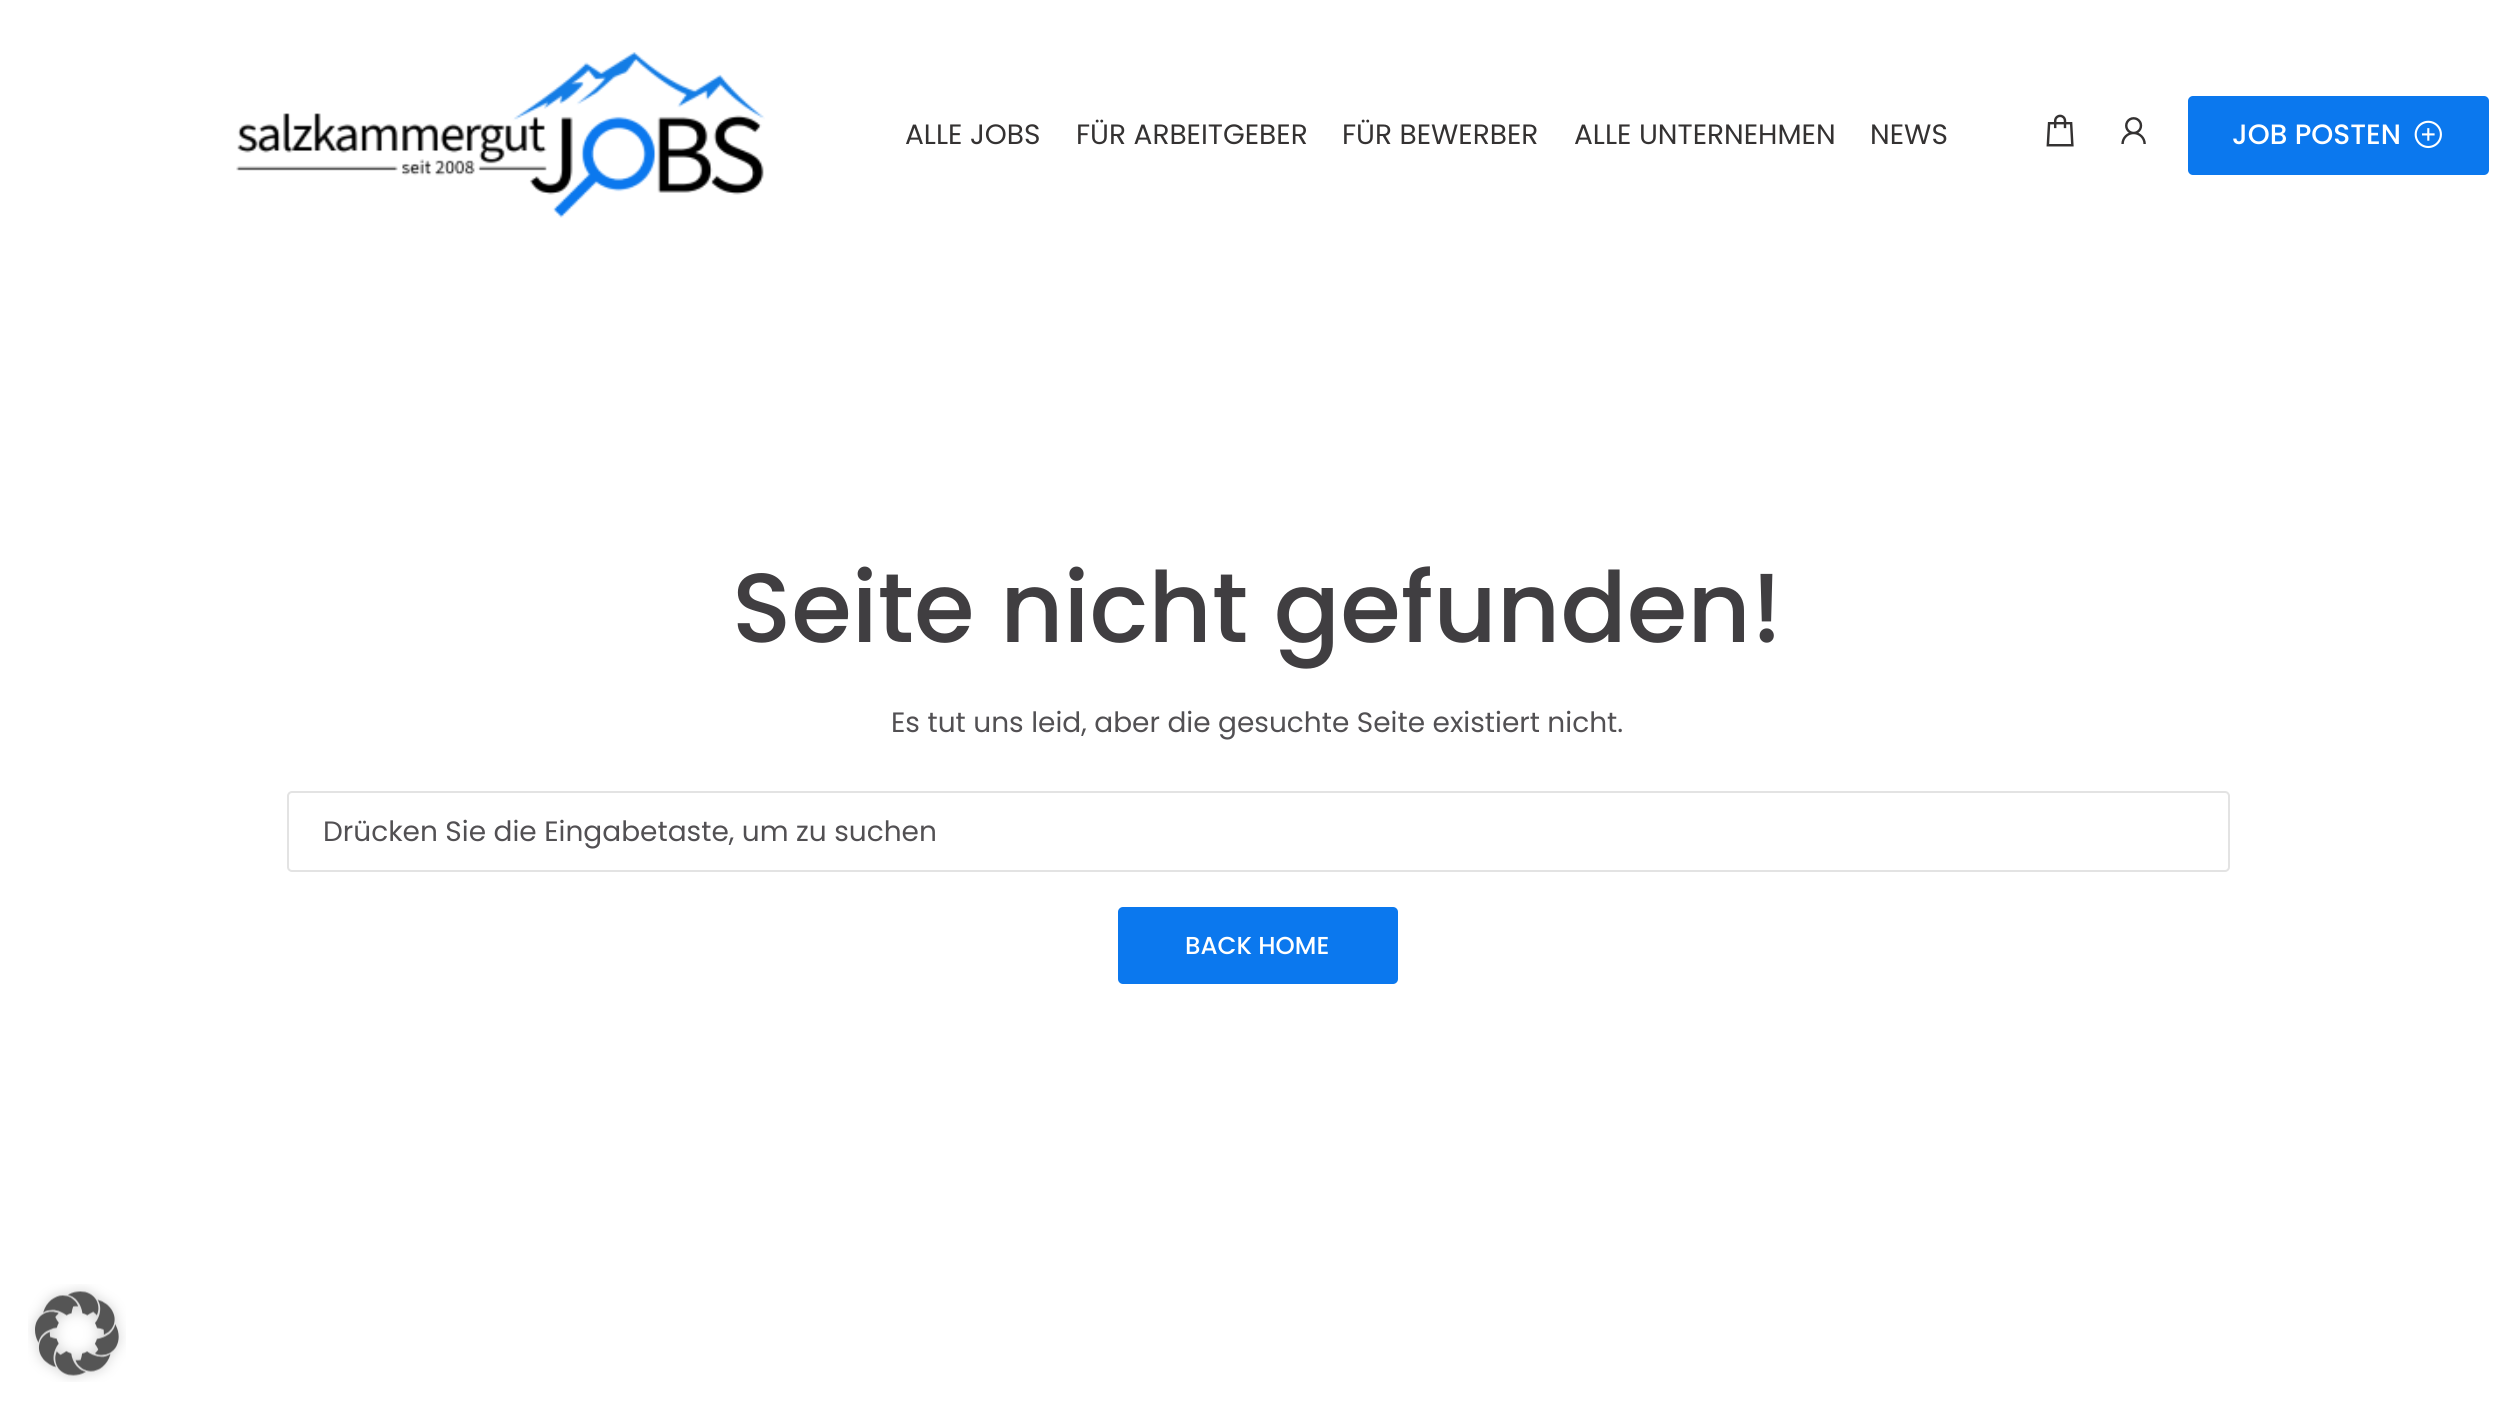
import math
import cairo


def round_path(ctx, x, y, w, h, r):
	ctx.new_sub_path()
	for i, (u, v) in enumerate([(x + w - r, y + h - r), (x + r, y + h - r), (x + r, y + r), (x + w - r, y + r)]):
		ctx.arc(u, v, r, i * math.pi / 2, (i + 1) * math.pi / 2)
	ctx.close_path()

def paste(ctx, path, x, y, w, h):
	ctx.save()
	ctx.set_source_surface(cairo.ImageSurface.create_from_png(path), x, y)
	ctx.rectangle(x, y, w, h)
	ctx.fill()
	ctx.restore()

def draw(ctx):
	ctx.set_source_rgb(1, 1, 1)
	ctx.paint()
	paste(ctx, 'media/1.png', 236, 52, 529, 166)
	ctx.select_font_face('Poppins')
	ctx.set_font_size(28)
	ctx.set_source_rgb(0.204, 0.196, 0.196)
	for x, y, s in [
		(905, 144, 'ALLE JOBS'),
		(1076, 144, 'FÜR ARBEITGEBER'),
		(1342, 144, 'FÜR BEWERBER'),
		(1574, 144, 'ALLE UNTERNEHMEN'),
		(1870, 144, 'NEWS'),
	]:
		ctx.move_to(x, y)
		ctx.show_text(s)
	paste(ctx, 'media/2.png', 2046, 114, 28, 33)
	paste(ctx, 'media/3.png', 2121, 117, 25, 27)
	ctx.set_source_rgb(0.043, 0.471, 0.933)
	round_path(ctx, 2188, 96, 301, 79, 5)
	ctx.fill()
	ctx.select_font_face('Poppins Medium')
	ctx.set_source_rgb(1, 1, 1)
	ctx.move_to(2232, 144)
	ctx.show_text('JOB POSTEN')
	paste(ctx, 'media/4.png', 2414, 120, 28, 29)
	ctx.set_font_size(98)
	ctx.set_source_rgb(0.251, 0.243, 0.255)
	ctx.move_to(732, 642)
	ctx.show_text('Seite nicht gefunden!')
	ctx.select_font_face('Poppins')
	ctx.set_font_size(28)
	ctx.set_source_rgb(0.322, 0.314, 0.325)
	ctx.move_to(891, 732)
	ctx.show_text('Es tut uns leid, aber die gesuchte Seite existiert nicht.')
	round_path(ctx, 288, 792, 1941, 79, 4)
	ctx.set_source_rgb(0.89, 0.89, 0.89)
	ctx.stroke()
	ctx.set_source_rgb(0.322, 0.314, 0.325)
	ctx.move_to(323, 841)
	ctx.show_text('Drücken Sie die Eingabetaste, um zu suchen')
	ctx.set_source_rgb(0.043, 0.471, 0.933)
	round_path(ctx, 1118, 907, 280, 77, 5)
	ctx.fill()
	ctx.select_font_face('Poppins Medium')
	ctx.set_font_size(24.5)
	ctx.set_source_rgb(1, 1, 1)
	ctx.move_to(1185, 954)
	ctx.show_text('BACK HOME')
	paste(ctx, 'media/5.png', 28, 1284, 98, 98)


surface = cairo.ImageSurface(cairo.FORMAT_RGB24, 2514, 1410)
ctx = cairo.Context(surface)
options = cairo.FontOptions()
options.set_hint_metrics(cairo.HINT_METRICS_OFF)
options.set_hint_style(cairo.HINT_STYLE_NONE)
ctx.set_font_options(options)
ctx.set_miter_limit(4)
draw(ctx)
surface.write_to_png('image.png')
